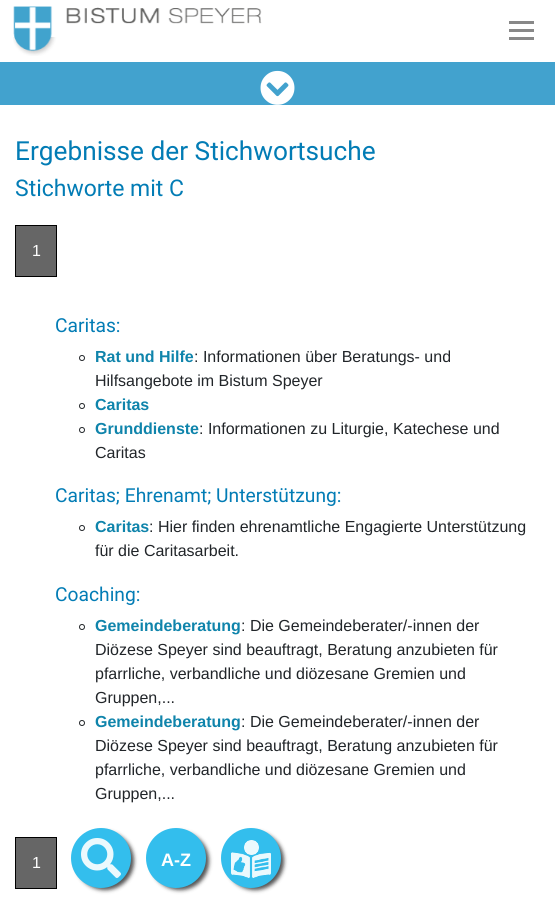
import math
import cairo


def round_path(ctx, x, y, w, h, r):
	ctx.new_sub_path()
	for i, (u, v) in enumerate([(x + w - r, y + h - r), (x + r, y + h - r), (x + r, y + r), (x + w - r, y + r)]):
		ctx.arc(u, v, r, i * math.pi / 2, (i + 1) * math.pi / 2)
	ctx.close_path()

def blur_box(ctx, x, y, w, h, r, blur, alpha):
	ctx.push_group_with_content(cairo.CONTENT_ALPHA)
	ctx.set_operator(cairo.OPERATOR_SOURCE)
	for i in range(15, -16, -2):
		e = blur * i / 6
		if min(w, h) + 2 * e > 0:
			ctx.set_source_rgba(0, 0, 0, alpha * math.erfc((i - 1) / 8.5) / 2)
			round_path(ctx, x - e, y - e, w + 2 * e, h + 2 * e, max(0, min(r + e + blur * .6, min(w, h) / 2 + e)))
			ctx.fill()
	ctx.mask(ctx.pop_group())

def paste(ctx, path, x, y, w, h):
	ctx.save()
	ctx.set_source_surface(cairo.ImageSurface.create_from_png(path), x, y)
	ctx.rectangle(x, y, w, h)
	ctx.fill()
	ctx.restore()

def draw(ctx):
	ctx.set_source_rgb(1, 1, 1)
	ctx.paint()
	paste(ctx, 'media/1.png', 13, 6, 249, 50)
	ctx.set_source_rgb(0.533, 0.533, 0.533)
	ctx.rectangle(509, 21, 25, 3)
	ctx.rectangle(509, 29, 25, 3)
	ctx.rectangle(509, 37, 25, 3)
	ctx.fill()
	ctx.set_source_rgb(0.259, 0.635, 0.808)
	ctx.rectangle(0, 62, 555, 43)
	ctx.fill()
	paste(ctx, 'media/2.png', 260, 70, 35, 35)
	ctx.select_font_face('Roboto')
	ctx.set_font_size(26.25)
	ctx.set_source_rgb(0.008, 0.486, 0.71)
	ctx.move_to(15, 160)
	ctx.show_text('Ergebnisse der Stichwortsuche')
	ctx.set_font_size(23)
	ctx.move_to(15, 196)
	ctx.show_text('Stichworte mit C')
	ctx.set_source_rgb(0.4, 0.4, 0.4)
	ctx.rectangle(15.5, 225.5, 41, 51)
	ctx.fill_preserve()
	ctx.set_source_rgb(0, 0, 0)
	ctx.set_line_width(1)
	ctx.stroke()
	ctx.select_font_face('Liberation Sans')
	ctx.set_font_size(16)
	ctx.set_source_rgb(1, 1, 1)
	ctx.move_to(32, 256)
	ctx.show_text('1')
	ctx.select_font_face('Roboto')
	ctx.set_font_size(19.25)
	ctx.set_source_rgb(0.008, 0.486, 0.71)
	ctx.move_to(55, 332)
	ctx.show_text('Caritas:')
	ctx.new_path()
	ctx.arc(82, 358, 2.5, 0, 2 * math.pi)
	ctx.set_source_rgb(0.129, 0.145, 0.161)
	ctx.stroke()
	ctx.select_font_face('Liberation Sans', cairo.FONT_SLANT_NORMAL, cairo.FONT_WEIGHT_BOLD)
	ctx.set_font_size(16)
	ctx.set_source_rgb(0.059, 0.518, 0.671)
	ctx.move_to(95, 362)
	ctx.show_text('Rat und Hilfe')
	ctx.select_font_face('Liberation Sans')
	ctx.set_source_rgb(0.129, 0.145, 0.161)
	ctx.move_to(194, 362)
	ctx.show_text(': Informationen über Beratungs- und')
	ctx.move_to(95, 386)
	ctx.show_text('Hilfsangebote im Bistum Speyer')
	ctx.new_path()
	ctx.arc(82, 406, 2.5, 0, 2 * math.pi)
	ctx.stroke()
	ctx.select_font_face('Liberation Sans', cairo.FONT_SLANT_NORMAL, cairo.FONT_WEIGHT_BOLD)
	ctx.set_source_rgb(0.059, 0.518, 0.671)
	ctx.move_to(95, 410)
	ctx.show_text('Caritas')
	ctx.new_path()
	ctx.arc(82, 430, 2.5, 0, 2 * math.pi)
	ctx.set_source_rgb(0.129, 0.145, 0.161)
	ctx.stroke()
	ctx.set_source_rgb(0.059, 0.518, 0.671)
	ctx.move_to(95, 434)
	ctx.show_text('Grunddienste')
	ctx.select_font_face('Liberation Sans')
	ctx.set_source_rgb(0.129, 0.145, 0.161)
	ctx.move_to(199, 434)
	ctx.show_text(': Informationen zu Liturgie, Katechese und')
	ctx.move_to(95, 458)
	ctx.show_text('Caritas')
	ctx.select_font_face('Roboto')
	ctx.set_font_size(19.25)
	ctx.set_source_rgb(0.008, 0.486, 0.71)
	ctx.move_to(55, 502)
	ctx.show_text('Caritas; Ehrenamt; Unterstützung:')
	ctx.new_path()
	ctx.arc(82, 528, 2.5, 0, 2 * math.pi)
	ctx.set_source_rgb(0.129, 0.145, 0.161)
	ctx.stroke()
	ctx.select_font_face('Liberation Sans', cairo.FONT_SLANT_NORMAL, cairo.FONT_WEIGHT_BOLD)
	ctx.set_font_size(16)
	ctx.set_source_rgb(0.059, 0.518, 0.671)
	ctx.move_to(95, 532)
	ctx.show_text('Caritas')
	ctx.select_font_face('Liberation Sans')
	ctx.set_source_rgb(0.129, 0.145, 0.161)
	ctx.move_to(149, 532)
	ctx.show_text(': Hier finden ehrenamtliche Engagierte Unterstützung')
	ctx.move_to(95, 556)
	ctx.show_text('für die Caritasarbeit.')
	ctx.select_font_face('Roboto')
	ctx.set_font_size(19.25)
	ctx.set_source_rgb(0.008, 0.486, 0.71)
	ctx.move_to(55, 601)
	ctx.show_text('Coaching:')
	ctx.new_path()
	ctx.arc(82, 627, 2.5, 0, 2 * math.pi)
	ctx.set_source_rgb(0.129, 0.145, 0.161)
	ctx.stroke()
	ctx.select_font_face('Liberation Sans', cairo.FONT_SLANT_NORMAL, cairo.FONT_WEIGHT_BOLD)
	ctx.set_font_size(16)
	ctx.set_source_rgb(0.059, 0.518, 0.671)
	ctx.move_to(95, 631)
	ctx.show_text('Gemeindeberatung')
	ctx.select_font_face('Liberation Sans')
	ctx.set_source_rgb(0.129, 0.145, 0.161)
	for x, y, s in [
		(241, 631, ': Die Gemeindeberater/-innen der'),
		(95, 655, 'Diözese Speyer sind beauftragt, Beratung anzubieten für'),
		(95, 679, 'pfarrliche, verbandliche und diözesane Gremien und'),
		(95, 703, 'Gruppen,...'),
	]:
		ctx.move_to(x, y)
		ctx.show_text(s)
	ctx.new_path()
	ctx.arc(82, 723, 2.5, 0, 2 * math.pi)
	ctx.stroke()
	ctx.select_font_face('Liberation Sans', cairo.FONT_SLANT_NORMAL, cairo.FONT_WEIGHT_BOLD)
	ctx.set_source_rgb(0.059, 0.518, 0.671)
	ctx.move_to(95, 727)
	ctx.show_text('Gemeindeberatung')
	ctx.select_font_face('Liberation Sans')
	ctx.set_source_rgb(0.129, 0.145, 0.161)
	for x, y, s in [
		(241, 727, ': Die Gemeindeberater/-innen der'),
		(95, 751, 'Diözese Speyer sind beauftragt, Beratung anzubieten für'),
		(95, 775, 'pfarrliche, verbandliche und diözesane Gremien und'),
		(95, 799, 'Gruppen,...'),
	]:
		ctx.move_to(x, y)
		ctx.show_text(s)
	ctx.set_source_rgb(0.4, 0.4, 0.4)
	ctx.rectangle(15.5, 837.5, 41, 51)
	ctx.fill_preserve()
	ctx.set_source_rgb(0, 0, 0)
	ctx.stroke()
	ctx.set_source_rgb(1, 1, 1)
	ctx.move_to(32, 868)
	ctx.show_text('1')
	ctx.set_source_rgb(0.102, 0.102, 0.102)
	blur_box(ctx, 76, 832, 58, 58, 29, 2, 0.75)
	ctx.set_source_rgb(0.2, 0.745, 0.929)
	ctx.arc(101, 858, 30, 0, 2 * math.pi)
	ctx.fill()
	paste(ctx, 'media/3.png', 81, 838, 40, 40)
	ctx.set_source_rgb(0.102, 0.102, 0.102)
	blur_box(ctx, 151, 832, 58, 58, 29, 2, 0.75)
	ctx.set_source_rgb(0.2, 0.745, 0.929)
	ctx.arc(176, 858, 30, 0, 2 * math.pi)
	ctx.fill()
	ctx.select_font_face('Liberation Sans', cairo.FONT_SLANT_NORMAL, cairo.FONT_WEIGHT_BOLD)
	ctx.set_font_size(18)
	ctx.set_source_rgb(1, 1, 1)
	ctx.move_to(161, 866)
	ctx.show_text('A-Z')
	ctx.set_source_rgb(0.102, 0.102, 0.102)
	blur_box(ctx, 226, 832, 58, 58, 29, 2, 0.75)
	ctx.set_source_rgb(0.2, 0.745, 0.929)
	ctx.arc(251, 858, 30, 0, 2 * math.pi)
	ctx.fill()
	paste(ctx, 'media/4.png', 231, 840, 40, 38)


surface = cairo.ImageSurface(cairo.FORMAT_RGB24, 555, 904)
ctx = cairo.Context(surface)
options = cairo.FontOptions()
options.set_hint_metrics(cairo.HINT_METRICS_OFF)
options.set_hint_style(cairo.HINT_STYLE_NONE)
ctx.set_font_options(options)
ctx.set_miter_limit(4)
draw(ctx)
surface.write_to_png('image.png')
